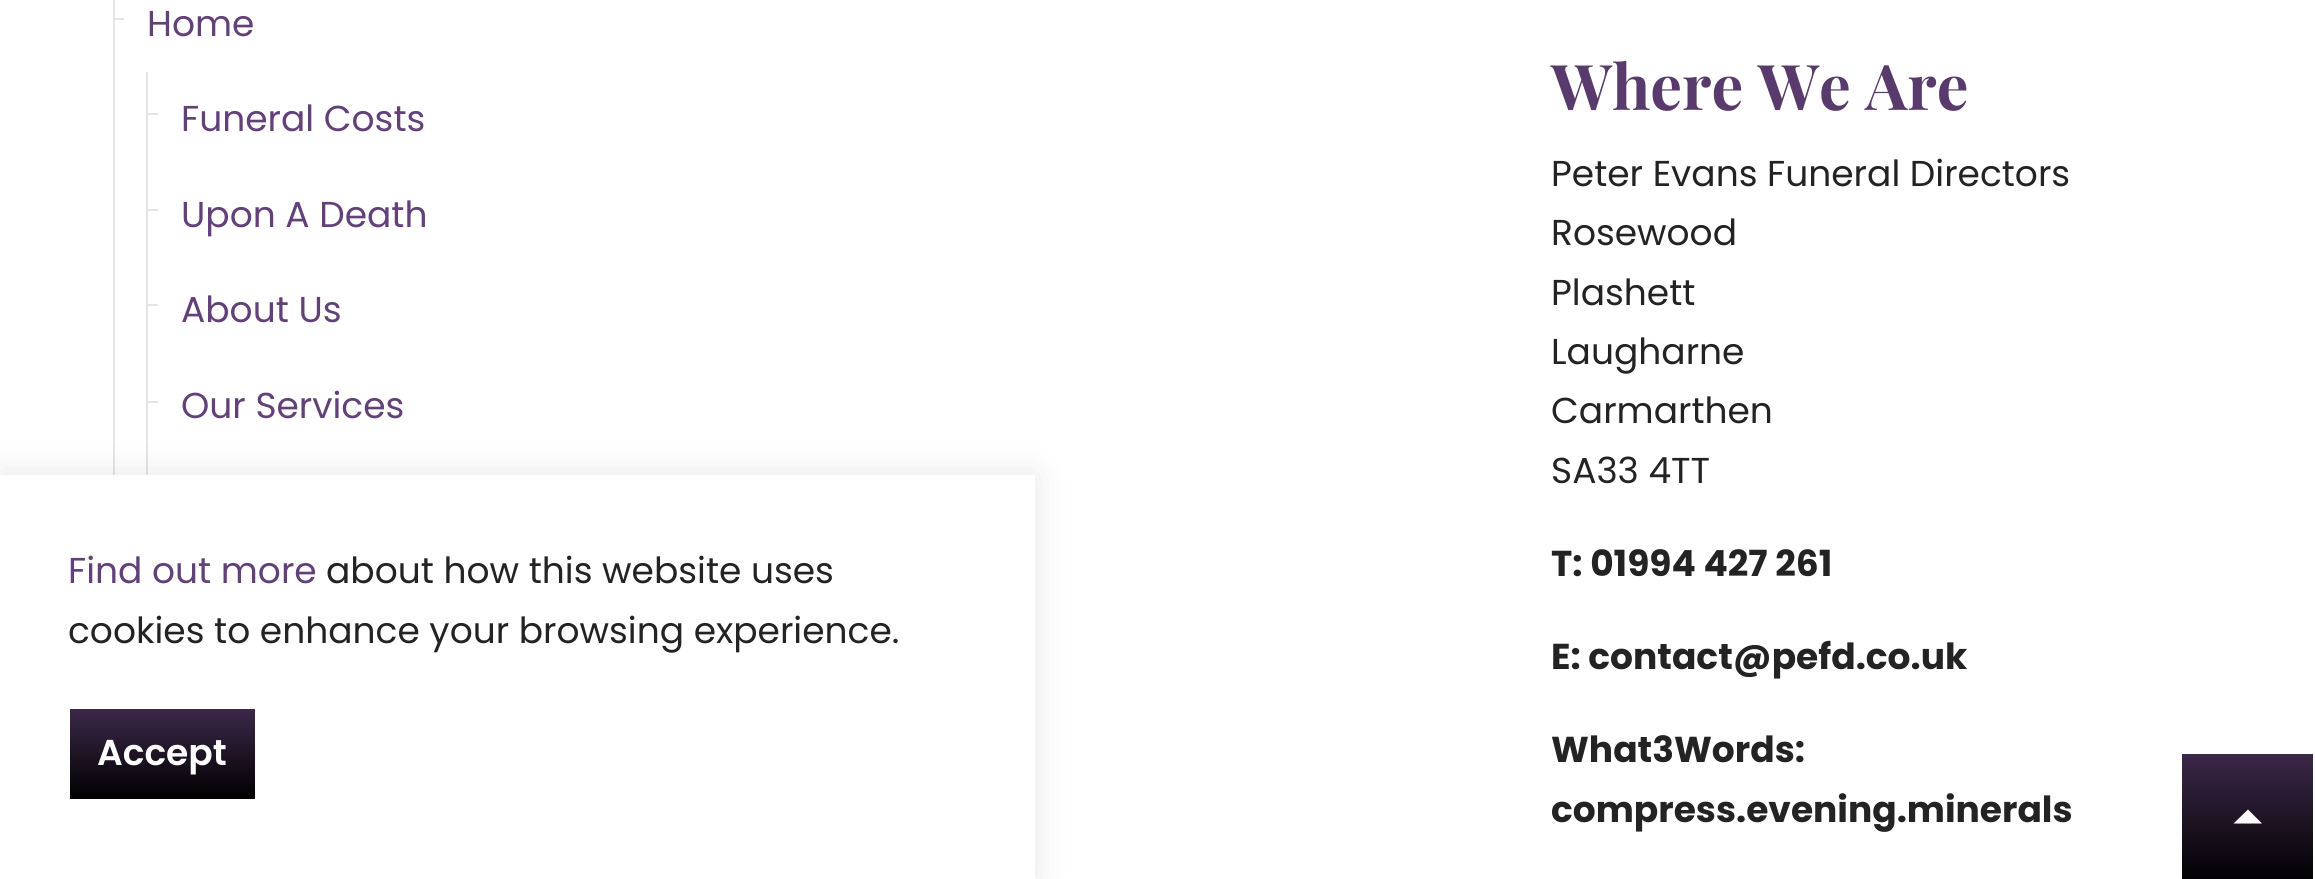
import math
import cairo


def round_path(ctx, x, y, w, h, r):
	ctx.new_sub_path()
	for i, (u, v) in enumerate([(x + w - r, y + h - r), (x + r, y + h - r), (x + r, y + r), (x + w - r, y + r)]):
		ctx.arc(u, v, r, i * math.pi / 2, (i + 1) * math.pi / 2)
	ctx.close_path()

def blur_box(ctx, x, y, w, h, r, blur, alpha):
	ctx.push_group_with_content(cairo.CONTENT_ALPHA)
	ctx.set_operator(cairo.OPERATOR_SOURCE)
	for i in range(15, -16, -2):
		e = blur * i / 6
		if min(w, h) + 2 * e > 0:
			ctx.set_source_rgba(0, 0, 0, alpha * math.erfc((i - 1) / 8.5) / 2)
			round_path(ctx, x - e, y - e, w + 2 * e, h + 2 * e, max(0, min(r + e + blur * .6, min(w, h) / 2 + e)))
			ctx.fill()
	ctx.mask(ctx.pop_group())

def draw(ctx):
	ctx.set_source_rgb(1, 1, 1)
	ctx.paint()
	ctx.set_source_rgb(0.898, 0.898, 0.898)
	ctx.rectangle(113, 0, 2, 475)
	ctx.fill()
	ctx.select_font_face('Poppins')
	ctx.set_font_size(36)
	ctx.set_source_rgb(0.384, 0.251, 0.471)
	ctx.move_to(147, 36)
	ctx.show_text('Home')
	ctx.set_source_rgb(0.898, 0.898, 0.898)
	ctx.rectangle(113, 18, 11, 2)
	ctx.fill()
	ctx.rectangle(146, 72, 2, 403)
	ctx.fill()
	ctx.set_source_rgb(0.384, 0.251, 0.471)
	ctx.move_to(181, 131)
	ctx.show_text('Funeral Costs')
	ctx.set_source_rgb(0.898, 0.898, 0.898)
	ctx.rectangle(146, 113, 12, 2)
	ctx.fill()
	ctx.rectangle(146, 209, 12, 2)
	ctx.fill()
	ctx.set_source_rgb(0.384, 0.251, 0.471)
	ctx.move_to(181, 227)
	ctx.show_text('Upon A Death')
	ctx.set_source_rgb(0.898, 0.898, 0.898)
	ctx.rectangle(146, 304, 12, 2)
	ctx.fill()
	ctx.set_source_rgb(0.384, 0.251, 0.471)
	ctx.move_to(181, 322)
	ctx.show_text('About Us')
	ctx.set_source_rgb(0.898, 0.898, 0.898)
	ctx.rectangle(146, 401, 12, 2)
	ctx.fill()
	ctx.set_source_rgb(0.384, 0.251, 0.471)
	ctx.move_to(181, 418)
	ctx.show_text('Our Services')
	ctx.select_font_face('Playfair Display', cairo.FONT_SLANT_NORMAL, cairo.FONT_WEIGHT_BOLD)
	ctx.set_font_size(63)
	ctx.set_source_rgb(0.345, 0.227, 0.424)
	ctx.move_to(1551, 110)
	ctx.show_text('Where We Are')
	ctx.select_font_face('Poppins')
	ctx.set_font_size(36)
	ctx.set_source_rgb(0.137, 0.137, 0.137)
	for x, y, s in [
		(1551, 186, 'Peter Evans Funeral Directors'),
		(1551, 245, 'Rosewood'),
		(1551, 305, 'Plashett'),
		(1551, 364, 'Laugharne'),
		(1551, 423, 'Carmarthen'),
		(1551, 483, 'SA33 4TT'),
	]:
		ctx.move_to(x, y)
		ctx.show_text(s)
	ctx.select_font_face('Poppins', cairo.FONT_SLANT_NORMAL, cairo.FONT_WEIGHT_BOLD)
	for x, y, s in [
		(1551, 576, 'T: 01994 427 261'),
		(1551, 669, 'E: contact@pefd.co.uk'),
		(1551, 762, 'What3Words:'),
		(1551, 822, 'compress.evening.minerals'),
	]:
		ctx.move_to(x, y)
		ctx.show_text(s)
	gradient = cairo.LinearGradient(2248, 754, 2248, 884)
	gradient.add_color_stop_rgba(0, 0.235, 0.157, 0.286, 1)
	gradient.add_color_stop_rgba(1, 0, 0, 0, 1)
	ctx.set_source(gradient)
	ctx.rectangle(2182, 754, 131, 125)
	ctx.fill()
	ctx.set_source_rgb(1, 1, 1)
	ctx.new_path()
	ctx.move_to(2233.5, 823.5)
	ctx.line_to(2248, 809.5)
	ctx.line_to(2262, 823.5)
	ctx.close_path()
	ctx.fill()
	ctx.set_source_rgb(0, 0, 0)
	blur_box(ctx, 0, 475, 1035, 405, 0, 17, 0.1)
	ctx.set_source_rgb(1, 1, 1)
	ctx.rectangle(0, 475, 1035, 404)
	ctx.fill()
	ctx.select_font_face('Poppins')
	ctx.set_source_rgb(0.384, 0.251, 0.471)
	ctx.move_to(68, 583)
	ctx.show_text('Find out more')
	ctx.set_source_rgb(0.137, 0.137, 0.137)
	ctx.move_to(326, 583)
	ctx.show_text('about how this website uses')
	ctx.move_to(68, 643)
	ctx.show_text('cookies to enhance your browsing experience.')
	gradient = cairo.LinearGradient(162, 709, 162, 799)
	gradient.add_color_stop_rgba(0, 0.235, 0.157, 0.286, 1)
	gradient.add_color_stop_rgba(1, 0, 0, 0, 1)
	ctx.set_source(gradient)
	ctx.rectangle(70, 709, 185, 90)
	ctx.fill()
	ctx.select_font_face('Poppins SemiBold')
	ctx.set_source_rgb(1, 1, 1)
	ctx.move_to(97, 765)
	ctx.show_text('Accept')


surface = cairo.ImageSurface(cairo.FORMAT_RGB24, 2315, 879)
ctx = cairo.Context(surface)
options = cairo.FontOptions()
options.set_hint_metrics(cairo.HINT_METRICS_OFF)
options.set_hint_style(cairo.HINT_STYLE_NONE)
ctx.set_font_options(options)
ctx.set_miter_limit(4)
draw(ctx)
surface.write_to_png('image.png')
